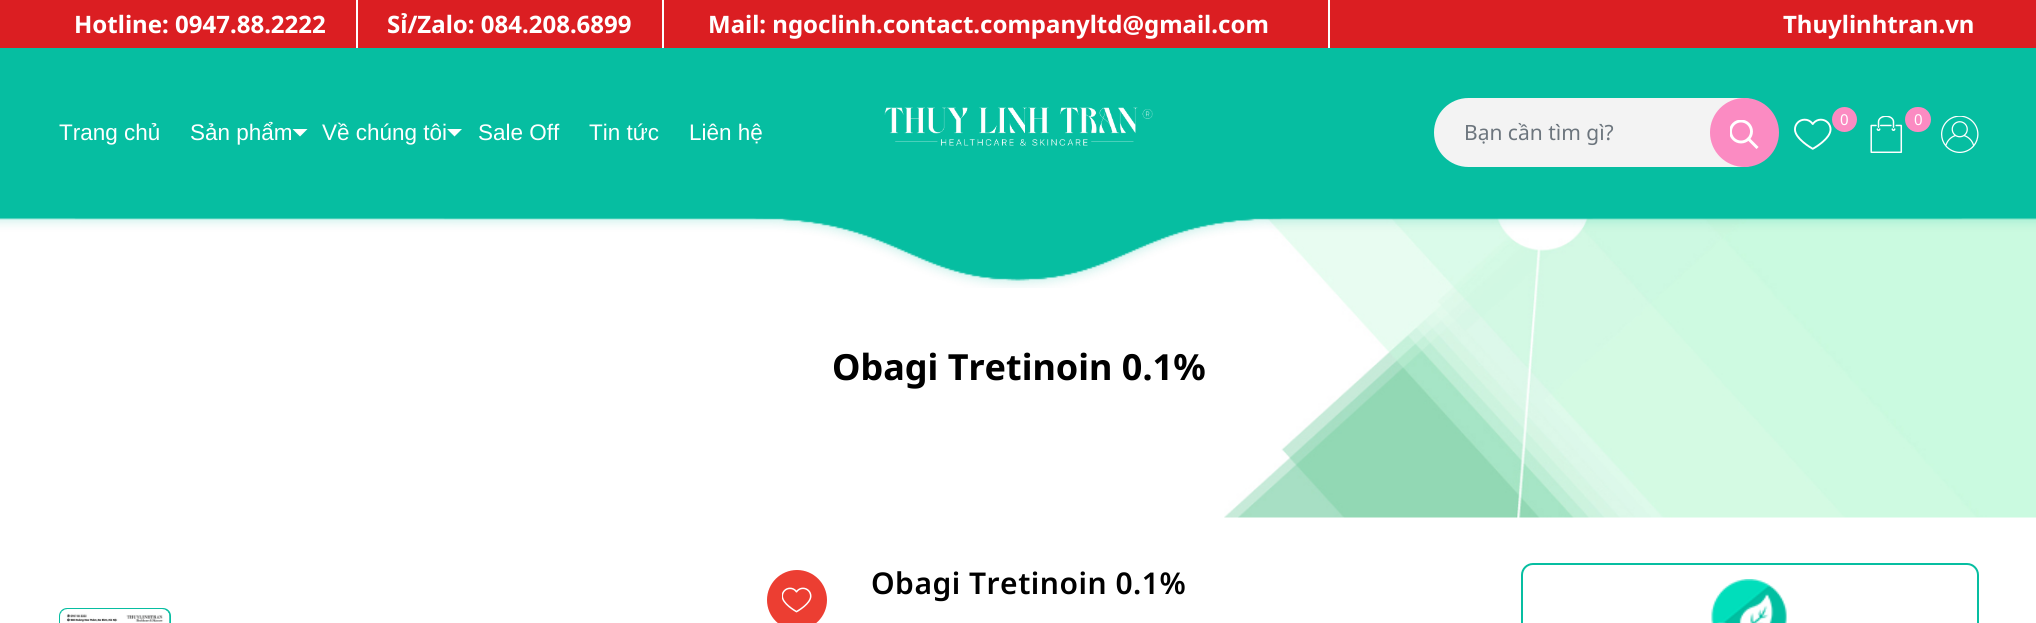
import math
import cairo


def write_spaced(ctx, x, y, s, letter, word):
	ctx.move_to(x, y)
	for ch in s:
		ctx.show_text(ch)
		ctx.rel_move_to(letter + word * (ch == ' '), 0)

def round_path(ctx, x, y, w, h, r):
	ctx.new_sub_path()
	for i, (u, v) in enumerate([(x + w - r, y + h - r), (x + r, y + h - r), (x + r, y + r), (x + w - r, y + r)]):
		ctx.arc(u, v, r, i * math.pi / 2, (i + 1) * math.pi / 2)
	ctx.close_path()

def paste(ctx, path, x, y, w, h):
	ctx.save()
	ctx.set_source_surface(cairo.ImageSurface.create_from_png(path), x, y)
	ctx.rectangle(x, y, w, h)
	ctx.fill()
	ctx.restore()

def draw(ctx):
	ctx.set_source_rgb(1, 1, 1)
	ctx.paint()
	ctx.set_source_rgb(0.859, 0.118, 0.133)
	ctx.rectangle(0, 0, 2036, 48)
	ctx.fill()
	ctx.set_source_rgb(1, 1, 1)
	ctx.rectangle(356, 0, 2, 48)
	ctx.fill()
	ctx.select_font_face('Noto Sans', cairo.FONT_SLANT_NORMAL, cairo.FONT_WEIGHT_BOLD)
	ctx.set_font_size(24)
	ctx.move_to(74, 33)
	ctx.show_text('Hotline: 0947.88.2222')
	ctx.rectangle(662, 0, 2, 48)
	ctx.fill()
	ctx.move_to(387, 33)
	ctx.show_text('Sỉ/Zalo: 084.208.6899')
	ctx.rectangle(1328, 0, 2, 48)
	ctx.fill()
	ctx.move_to(708, 33)
	ctx.show_text('Mail: ngoclinh.contact.companyltd@gmail.com')
	ctx.move_to(1783, 33)
	ctx.show_text('Thuylinhtran.vn')
	ctx.set_source_rgb(0.024, 0.745, 0.631)
	ctx.rectangle(0, 48, 2036, 170)
	ctx.fill()
	ctx.select_font_face('Liberation Sans')
	ctx.set_font_size(22.5)
	ctx.set_source_rgb(1, 1, 1)
	ctx.move_to(59, 140)
	ctx.show_text('Trang chủ')
	ctx.move_to(190, 140)
	ctx.show_text('Sản phẩm')
	ctx.new_path()
	ctx.move_to(292.5, 129)
	ctx.line_to(307.5, 129)
	ctx.line_to(300, 136.5)
	ctx.close_path()
	ctx.fill()
	ctx.move_to(322, 140)
	ctx.show_text('Về chúng tôi')
	ctx.new_path()
	ctx.move_to(447, 129)
	ctx.line_to(462, 129)
	ctx.line_to(454.5, 136.5)
	ctx.close_path()
	ctx.fill()
	for x, y, s in [
		(478, 140, 'Sale Off'),
		(589, 140, 'Tin tức'),
		(689, 140, 'Liên hệ'),
	]:
		ctx.move_to(x, y)
		ctx.show_text(s)
	paste(ctx, 'media/1.png', 884, 107, 269, 39)
	paste(ctx, 'media/2.png', 1794, 118, 38, 32)
	ctx.set_source_rgb(0.984, 0.545, 0.761)
	ctx.arc(1844.5, 119.5, 12.5, 0, 2 * math.pi)
	ctx.fill()
	ctx.select_font_face('Noto Sans')
	ctx.set_font_size(15)
	ctx.set_source_rgb(1, 1, 1)
	ctx.move_to(1840, 125)
	ctx.show_text('0')
	paste(ctx, 'media/3.png', 1870, 116, 33, 37)
	ctx.set_source_rgb(0.984, 0.545, 0.761)
	round_path(ctx, 1905, 107, 26, 25, 12.5)
	ctx.fill()
	ctx.set_source_rgb(1, 1, 1)
	ctx.move_to(1914, 125)
	ctx.show_text('0')
	paste(ctx, 'media/4.png', 1941, 116, 38, 37)
	ctx.set_source_rgb(0.953, 0.953, 0.953)
	round_path(ctx, 1434, 98, 342, 69, 34.5)
	ctx.fill()
	ctx.set_font_size(21)
	ctx.set_source_rgb(0.424, 0.459, 0.49)
	ctx.move_to(1464, 140)
	ctx.show_text('Bạn cần tìm gì?')
	ctx.set_source_rgb(0.984, 0.545, 0.761)
	ctx.new_path()
	ctx.arc(1744.5, 132.5, 34.5, 0, 2 * math.pi)
	ctx.fill()
	ctx.new_path()
	ctx.move_to(1756.5, 147)
	ctx.line_to(1748.5, 139)
	ctx.set_source_rgb(1, 1, 1)
	ctx.set_line_width(2.9)
	ctx.set_line_cap(cairo.LINE_CAP_SQUARE)
	ctx.stroke()
	ctx.save()
	ctx.rectangle(1730, 120, 30, 30)
	ctx.clip()
	ctx.arc(1741, 131.5, 10.5, 0, 2 * math.pi)
	ctx.set_line_cap(cairo.LINE_CAP_BUTT)
	ctx.stroke()
	ctx.restore()
	paste(ctx, 'media/6.png', 1224, 218, 812, 300)
	paste(ctx, 'media/5.png', 0, 218, 2036, 70)
	ctx.select_font_face('Noto Sans', cairo.FONT_SLANT_NORMAL, cairo.FONT_WEIGHT_BOLD)
	ctx.set_font_size(36)
	ctx.set_source_rgb(0, 0, 0)
	ctx.move_to(832, 380)
	ctx.show_text('Obagi Tretinoin 0.1%')
	round_path(ctx, 60, 609, 110, 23, 7)
	ctx.set_source_rgb(0.024, 0.745, 0.631)
	ctx.set_line_width(2)
	ctx.set_line_cap(cairo.LINE_CAP_BUTT)
	ctx.stroke()
	paste(ctx, 'media/7.png', 60, 609, 110, 14)
	ctx.set_source_rgb(0.922, 0.243, 0.196)
	ctx.arc(797, 600, 30, 0, 2 * math.pi)
	ctx.fill()
	paste(ctx, 'media/8.png', 782, 587, 30, 26)
	ctx.select_font_face('Noto Sans SemiBold')
	ctx.set_font_size(30)
	ctx.set_source_rgb(0, 0, 0)
	write_spaced(ctx, 871, 594, 'Obagi Tretinoin 0.1%', 0.5, 0)
	round_path(ctx, 1522, 564, 456, 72, 11)
	ctx.set_source_rgb(0.024, 0.745, 0.631)
	ctx.stroke()
	paste(ctx, 'media/9.png', 1711, 579, 76, 44)


surface = cairo.ImageSurface(cairo.FORMAT_RGB24, 2036, 623)
ctx = cairo.Context(surface)
options = cairo.FontOptions()
options.set_hint_metrics(cairo.HINT_METRICS_OFF)
options.set_hint_style(cairo.HINT_STYLE_NONE)
ctx.set_font_options(options)
ctx.set_miter_limit(4)
draw(ctx)
surface.write_to_png('image.png')
